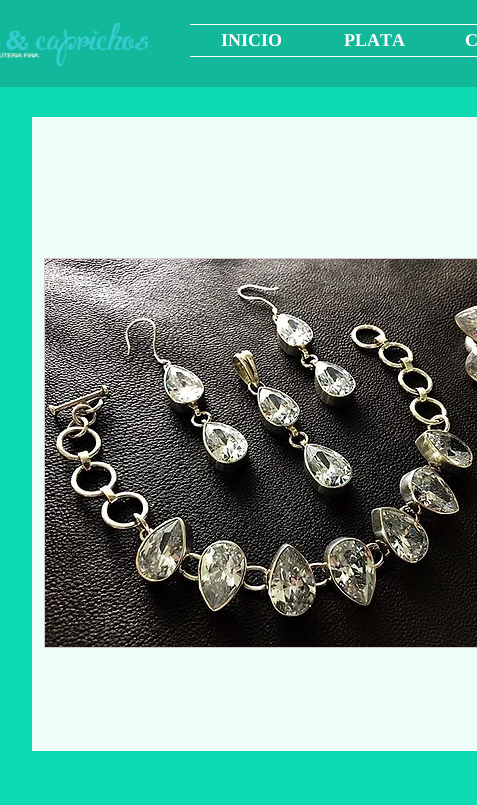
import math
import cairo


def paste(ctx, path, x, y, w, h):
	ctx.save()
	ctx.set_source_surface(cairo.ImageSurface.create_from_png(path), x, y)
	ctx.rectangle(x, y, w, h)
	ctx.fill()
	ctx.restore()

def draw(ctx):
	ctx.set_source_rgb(0.051, 0.851, 0.702)
	ctx.paint()
	ctx.set_source_rgb(0.067, 0.722, 0.6)
	ctx.rectangle(0, 0, 477, 87)
	ctx.fill()
	paste(ctx, 'media/1.png', 0, 22, 148, 45)
	ctx.set_source_rgb(1, 1, 1)
	ctx.rectangle(190, 24, 287, 1)
	ctx.fill()
	ctx.rectangle(190, 56, 287, 1)
	ctx.fill()
	ctx.select_font_face('Liberation Serif', cairo.FONT_SLANT_NORMAL, cairo.FONT_WEIGHT_BOLD)
	ctx.set_font_size(18)
	for x, y, s in [
		(221, 46, 'INICIO'),
		(344, 46, 'PLATA'),
		(465, 46, 'C'),
	]:
		ctx.move_to(x, y)
		ctx.show_text(s)
	ctx.set_source_rgb(0.933, 0.988, 0.98)
	ctx.rectangle(32, 117, 445, 634)
	ctx.fill()
	ctx.rectangle(44.5, 258.5, 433, 389)
	ctx.set_source_rgb(0.82, 0.792, 0.788)
	ctx.set_line_width(1)
	ctx.stroke()
	paste(ctx, 'media/2.png', 45, 259, 432, 388)


surface = cairo.ImageSurface(cairo.FORMAT_RGB24, 477, 805)
ctx = cairo.Context(surface)
options = cairo.FontOptions()
options.set_hint_metrics(cairo.HINT_METRICS_OFF)
options.set_hint_style(cairo.HINT_STYLE_NONE)
ctx.set_font_options(options)
ctx.set_miter_limit(4)
draw(ctx)
surface.write_to_png('image.png')
